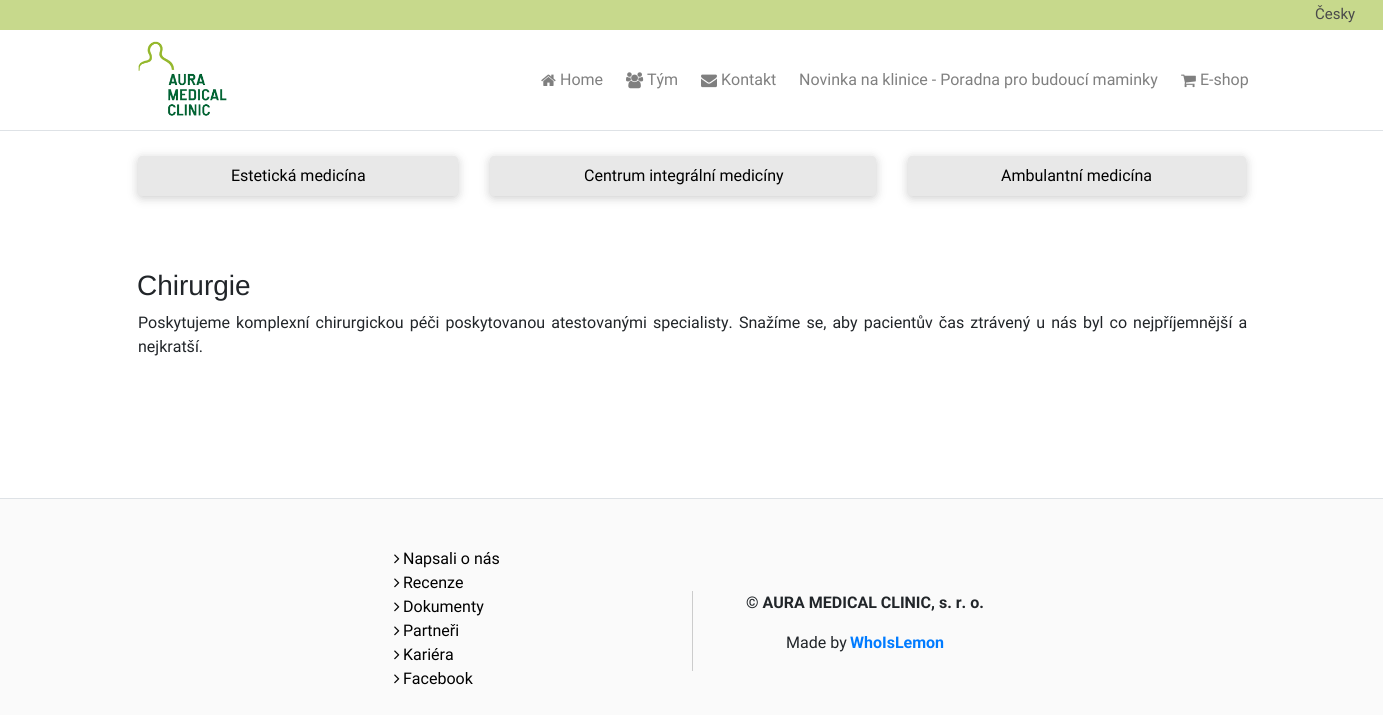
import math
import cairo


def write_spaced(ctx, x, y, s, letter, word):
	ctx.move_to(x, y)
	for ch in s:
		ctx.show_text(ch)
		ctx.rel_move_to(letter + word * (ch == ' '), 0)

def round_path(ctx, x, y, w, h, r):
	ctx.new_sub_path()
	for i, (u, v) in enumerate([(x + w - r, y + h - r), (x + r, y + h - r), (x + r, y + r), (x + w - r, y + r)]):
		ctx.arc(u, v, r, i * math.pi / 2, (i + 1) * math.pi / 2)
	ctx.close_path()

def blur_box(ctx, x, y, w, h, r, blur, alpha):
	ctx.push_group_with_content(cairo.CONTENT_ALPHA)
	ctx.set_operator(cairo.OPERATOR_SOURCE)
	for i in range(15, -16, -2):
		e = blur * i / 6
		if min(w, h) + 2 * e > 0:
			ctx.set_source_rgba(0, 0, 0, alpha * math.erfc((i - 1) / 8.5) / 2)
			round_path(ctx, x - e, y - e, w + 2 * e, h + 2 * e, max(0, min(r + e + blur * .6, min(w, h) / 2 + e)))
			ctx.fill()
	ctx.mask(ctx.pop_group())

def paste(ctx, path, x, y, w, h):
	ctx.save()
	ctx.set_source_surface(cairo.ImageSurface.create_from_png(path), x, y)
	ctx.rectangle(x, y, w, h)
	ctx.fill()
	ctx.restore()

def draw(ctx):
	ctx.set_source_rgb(1, 1, 1)
	ctx.paint()
	ctx.set_source_rgb(0.78, 0.851, 0.549)
	ctx.rectangle(0, 0, 1383, 30)
	ctx.fill()
	ctx.select_font_face('Roboto')
	ctx.set_font_size(15)
	ctx.set_source_rgb(0.29, 0.29, 0.29)
	ctx.move_to(1315, 19)
	ctx.show_text('Česky')
	ctx.set_source_rgb(0.871, 0.886, 0.902)
	ctx.rectangle(0, 130, 1383, 1)
	ctx.fill()
	paste(ctx, 'media/1.png', 138, 41, 89, 75)
	paste(ctx, 'media/2.png', 541, 74, 15, 12)
	ctx.set_font_size(16)
	ctx.set_source_rgb(0.502, 0.502, 0.502)
	ctx.move_to(560, 85)
	ctx.show_text('Home')
	paste(ctx, 'media/3.png', 626, 72, 18, 17)
	ctx.move_to(647, 85)
	ctx.show_text('Tým')
	paste(ctx, 'media/4.png', 701, 74, 16, 14)
	ctx.move_to(721, 85)
	ctx.show_text('Kontakt')
	ctx.move_to(799, 85)
	ctx.show_text('Novinka na klinice - Poradna pro budoucí maminky')
	paste(ctx, 'media/5.png', 1181, 74, 15, 14)
	ctx.move_to(1200, 85)
	ctx.show_text('E-shop')
	ctx.set_source_rgb(0, 0, 0)
	blur_box(ctx, 138, 158, 320, 40, 4, 5, 0.2)
	ctx.set_source_rgb(0.91, 0.91, 0.91)
	round_path(ctx, 138, 156, 320, 40, 4)
	ctx.fill()
	ctx.set_source_rgb(0, 0, 0)
	ctx.move_to(231, 181)
	ctx.show_text('Estetická medicína')
	ctx.set_source_rgb(0, 0, 0)
	blur_box(ctx, 490, 158, 386, 40, 4, 5, 0.2)
	ctx.set_source_rgb(0.91, 0.91, 0.91)
	round_path(ctx, 490, 156, 386, 40, 4)
	ctx.fill()
	ctx.set_source_rgb(0, 0, 0)
	ctx.move_to(584, 181)
	ctx.show_text('Centrum integrální medicíny')
	ctx.set_source_rgb(0, 0, 0)
	blur_box(ctx, 908, 158, 338, 40, 4, 5, 0.2)
	ctx.set_source_rgb(0.91, 0.91, 0.91)
	round_path(ctx, 908, 156, 338, 40, 4)
	ctx.fill()
	ctx.set_source_rgb(0, 0, 0)
	ctx.move_to(1001, 181)
	ctx.show_text('Ambulantní medicína')
	ctx.select_font_face('Liberation Sans')
	ctx.set_font_size(28)
	ctx.set_source_rgb(0.129, 0.145, 0.161)
	ctx.move_to(137, 295)
	ctx.show_text('Chirurgie')
	ctx.select_font_face('Roboto')
	ctx.set_font_size(16)
	write_spaced(ctx, 138, 328, 'Poskytujeme komplexní chirurgickou péči poskytovanou atestovanými specialisty. Snažíme se, aby pacientův čas ztrávený u nás byl co nejpříjemnější a', 0, 2.1)
	ctx.move_to(138, 352)
	ctx.show_text('nejkratší.')
	ctx.set_source_rgb(0.98, 0.98, 0.98)
	ctx.rectangle(0, 499, 1383, 216)
	ctx.fill()
	ctx.set_source_rgb(0.871, 0.886, 0.902)
	ctx.rectangle(0, 498, 1383, 1)
	ctx.fill()
	paste(ctx, 'media/6.png', 394, 554, 6, 10)
	ctx.set_source_rgb(0, 0, 0)
	ctx.move_to(403, 564)
	ctx.show_text('Napsali o nás')
	paste(ctx, 'media/6.png', 394, 578, 6, 10)
	ctx.move_to(403, 588)
	ctx.show_text('Recenze')
	paste(ctx, 'media/6.png', 394, 602, 6, 10)
	ctx.move_to(403, 612)
	ctx.show_text('Dokumenty')
	paste(ctx, 'media/6.png', 394, 626, 6, 10)
	ctx.move_to(403, 636)
	ctx.show_text('Partneři')
	paste(ctx, 'media/6.png', 394, 650, 6, 10)
	ctx.move_to(403, 660)
	ctx.show_text('Kariéra')
	paste(ctx, 'media/6.png', 394, 674, 6, 10)
	ctx.move_to(403, 684)
	ctx.show_text('Facebook')
	ctx.set_source_rgb(0.8, 0.8, 0.8)
	ctx.rectangle(692, 591, 1, 80)
	ctx.fill()
	ctx.select_font_face('Roboto', cairo.FONT_SLANT_NORMAL, cairo.FONT_WEIGHT_BOLD)
	ctx.set_source_rgb(0.129, 0.145, 0.161)
	ctx.move_to(746, 608)
	ctx.show_text('© AURA MEDICAL CLINIC, s. r. o.')
	ctx.select_font_face('Roboto')
	ctx.move_to(786, 648)
	ctx.show_text('Made by')
	ctx.select_font_face('Roboto', cairo.FONT_SLANT_NORMAL, cairo.FONT_WEIGHT_BOLD)
	ctx.set_source_rgb(0, 0.482, 1)
	ctx.move_to(850, 648)
	ctx.show_text('WhoIsLemon')


surface = cairo.ImageSurface(cairo.FORMAT_RGB24, 1383, 715)
ctx = cairo.Context(surface)
options = cairo.FontOptions()
options.set_hint_metrics(cairo.HINT_METRICS_OFF)
options.set_hint_style(cairo.HINT_STYLE_NONE)
ctx.set_font_options(options)
ctx.set_miter_limit(4)
draw(ctx)
surface.write_to_png('image.png')
